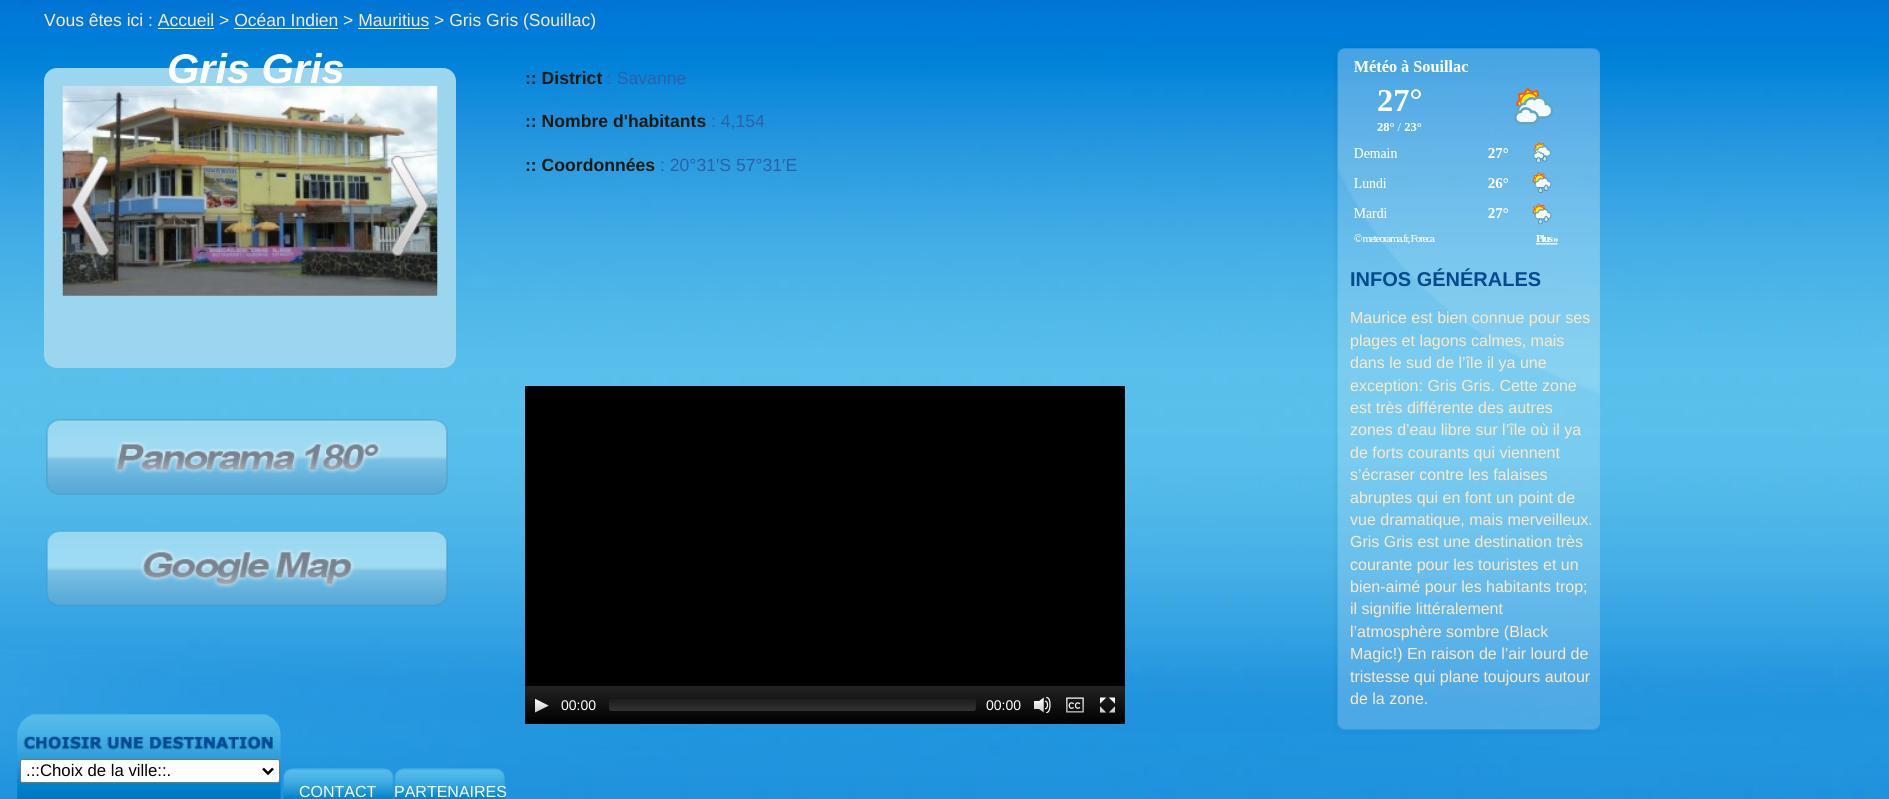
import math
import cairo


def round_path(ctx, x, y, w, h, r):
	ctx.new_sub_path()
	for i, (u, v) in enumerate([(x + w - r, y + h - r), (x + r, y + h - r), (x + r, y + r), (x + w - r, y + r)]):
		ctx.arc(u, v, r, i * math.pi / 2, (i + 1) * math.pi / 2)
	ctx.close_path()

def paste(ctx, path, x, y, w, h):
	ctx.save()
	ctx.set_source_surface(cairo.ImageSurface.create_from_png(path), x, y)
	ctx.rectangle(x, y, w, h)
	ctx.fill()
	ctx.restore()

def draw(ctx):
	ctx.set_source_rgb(1, 1, 1)
	ctx.paint()
	paste(ctx, 'media/1.png', 0, 0, 1889, 799)
	paste(ctx, 'media/2.png', 20, 0, 88, 3)
	ctx.select_font_face('Liberation Sans')
	ctx.set_font_size(17.5)
	ctx.set_source_rgb(0.992, 0.914, 0.788)
	ctx.move_to(44, 26)
	ctx.show_text('Vous êtes ici : Accueil > Océan Indien > Mauritius > Gris Gris (Souillac)')
	ctx.rectangle(158, 28, 56, 1)
	ctx.rectangle(234, 28, 104, 1)
	ctx.rectangle(358, 28, 71, 1)
	ctx.fill()
	ctx.set_source_rgb(0.612, 0.839, 0.933)
	round_path(ctx, 44, 68, 412, 300, 13)
	ctx.fill()
	ctx.select_font_face('Liberation Sans', cairo.FONT_SLANT_ITALIC, cairo.FONT_WEIGHT_BOLD)
	ctx.set_font_size(41.5)
	ctx.set_source_rgb(1, 1, 1)
	ctx.move_to(167, 83)
	ctx.show_text('Gris Gris')
	paste(ctx, 'media/3.png', 62, 85, 376, 211)
	paste(ctx, 'media/4.png', 71, 155, 38, 101)
	paste(ctx, 'media/5.png', 389, 155, 41, 101)
	paste(ctx, 'media/6.png', 46, 419, 402, 76)
	paste(ctx, 'media/7.png', 46, 530, 402, 76)
	paste(ctx, 'media/8.png', 1333, 44, 267, 690)
	paste(ctx, 'media/9.png', 1354, 60, 204, 185)
	ctx.select_font_face('Liberation Sans', cairo.FONT_SLANT_NORMAL, cairo.FONT_WEIGHT_BOLD)
	ctx.set_font_size(20)
	ctx.set_source_rgb(0.02, 0.29, 0.549)
	ctx.move_to(1350, 286)
	ctx.show_text('INFOS GÉNÉRALES')
	ctx.select_font_face('Liberation Sans')
	ctx.set_font_size(16)
	ctx.set_source_rgb(0.992, 0.914, 0.788)
	for x, y, s in [
		(1350, 323, 'Maurice est bien connue pour ses'),
		(1350, 346, 'plages et lagons calmes, mais'),
		(1350, 368, 'dans le sud de l’île il ya une'),
		(1350, 391, 'exception: Gris Gris. Cette zone'),
		(1350, 413, 'est très différente des autres'),
		(1350, 435, 'zones d’eau libre sur l’île où il ya'),
		(1350, 458, 'de forts courants qui viennent'),
		(1350, 480, 's’écraser contre les falaises'),
		(1350, 503, 'abruptes qui en font un point de'),
		(1350, 525, 'vue dramatique, mais merveilleux.'),
		(1350, 547, 'Gris Gris est une destination très'),
		(1350, 570, 'courante pour les touristes et un'),
		(1350, 592, 'bien-aimé pour les habitants trop;'),
		(1350, 614, 'il signifie littéralement'),
		(1350, 637, 'l’atmosphère sombre (Black'),
		(1350, 659, 'Magic!) En raison de l’air lourd de'),
		(1350, 682, 'tristesse qui plane toujours autour'),
		(1350, 704, 'de la zone.'),
	]:
		ctx.move_to(x, y)
		ctx.show_text(s)
	ctx.set_source_rgb(0, 0, 0)
	ctx.rectangle(525, 386, 600, 300)
	ctx.fill()
	gradient = cairo.LinearGradient(825, 686, 825, 724)
	gradient.add_color_stop_rgba(0, 0.137, 0.137, 0.137, 1)
	gradient.add_color_stop_rgba(1, 0, 0, 0, 1)
	ctx.set_source(gradient)
	ctx.rectangle(525, 686, 600, 38)
	ctx.fill()
	paste(ctx, 'media/10.png', 535, 698, 14, 15)
	ctx.set_font_size(14)
	ctx.set_source_rgb(1, 1, 1)
	ctx.move_to(561, 710)
	ctx.show_text('00:00')
	gradient = cairo.LinearGradient(793, 699, 793, 711)
	gradient.add_color_stop_rgba(0, 0.118, 0.118, 0.118, 0.8)
	gradient.add_color_stop_rgba(1, 0.235, 0.235, 0.235, 0.8)
	ctx.set_source(gradient)
	round_path(ctx, 609, 699, 367, 12, 2.5)
	ctx.fill()
	ctx.set_source_rgb(1, 1, 1)
	ctx.move_to(986, 710)
	ctx.show_text('00:00')
	paste(ctx, 'media/11.png', 1034, 696, 17, 18)
	paste(ctx, 'media/12.png', 1066, 697, 18, 16)
	paste(ctx, 'media/13.png', 1100, 697, 15, 16)
	ctx.select_font_face('Liberation Sans', cairo.FONT_SLANT_NORMAL, cairo.FONT_WEIGHT_BOLD)
	ctx.set_font_size(17.6)
	ctx.set_source_rgb(0.094, 0.102, 0.071)
	ctx.move_to(525, 84)
	ctx.show_text(':: District')
	ctx.select_font_face('Liberation Sans')
	ctx.set_source_rgb(0.169, 0.38, 0.651)
	ctx.move_to(607, 84)
	ctx.show_text(': Savanne')
	ctx.select_font_face('Liberation Sans', cairo.FONT_SLANT_NORMAL, cairo.FONT_WEIGHT_BOLD)
	ctx.set_source_rgb(0.094, 0.102, 0.071)
	ctx.move_to(525, 127)
	ctx.show_text(':: Nombre d\'habitants')
	ctx.select_font_face('Liberation Sans')
	ctx.set_source_rgb(0.169, 0.38, 0.651)
	ctx.move_to(711, 127)
	ctx.show_text(': 4,154')
	ctx.select_font_face('Liberation Sans', cairo.FONT_SLANT_NORMAL, cairo.FONT_WEIGHT_BOLD)
	ctx.set_source_rgb(0.094, 0.102, 0.071)
	ctx.move_to(525, 171)
	ctx.show_text(':: Coordonnées')
	ctx.select_font_face('Liberation Sans')
	ctx.set_source_rgb(0.169, 0.38, 0.651)
	ctx.move_to(660, 171)
	ctx.show_text(': 20°31′S 57°31′E')
	paste(ctx, 'media/14.png', 17, 714, 264, 85)
	paste(ctx, 'media/15.png', 283, 768, 111, 31)
	ctx.set_font_size(16)
	ctx.set_source_rgb(1, 1, 1)
	ctx.move_to(299, 797)
	ctx.show_text('CONTACT')
	paste(ctx, 'media/16.png', 394, 768, 111, 31)
	ctx.move_to(394, 797)
	ctx.show_text('PARTENAIRES')
	paste(ctx, 'media/17.png', 17, 714, 264, 85)
	round_path(ctx, 20.5, 759.5, 259, 23, 2)
	ctx.fill_preserve()
	ctx.set_source_rgb(0.463, 0.463, 0.463)
	ctx.set_line_width(1)
	ctx.stroke()
	ctx.new_path()
	ctx.move_to(263, 768.5)
	ctx.line_to(268, 773.5)
	ctx.line_to(273, 768.5)
	ctx.set_source_rgb(0, 0, 0)
	ctx.set_line_width(2.5)
	ctx.stroke()
	ctx.set_font_size(16.75)
	ctx.move_to(26, 776)
	ctx.show_text('.::Choix de la ville::.')


surface = cairo.ImageSurface(cairo.FORMAT_RGB24, 1889, 799)
ctx = cairo.Context(surface)
options = cairo.FontOptions()
options.set_hint_metrics(cairo.HINT_METRICS_OFF)
options.set_hint_style(cairo.HINT_STYLE_NONE)
ctx.set_font_options(options)
ctx.set_miter_limit(4)
draw(ctx)
surface.write_to_png('image.png')
